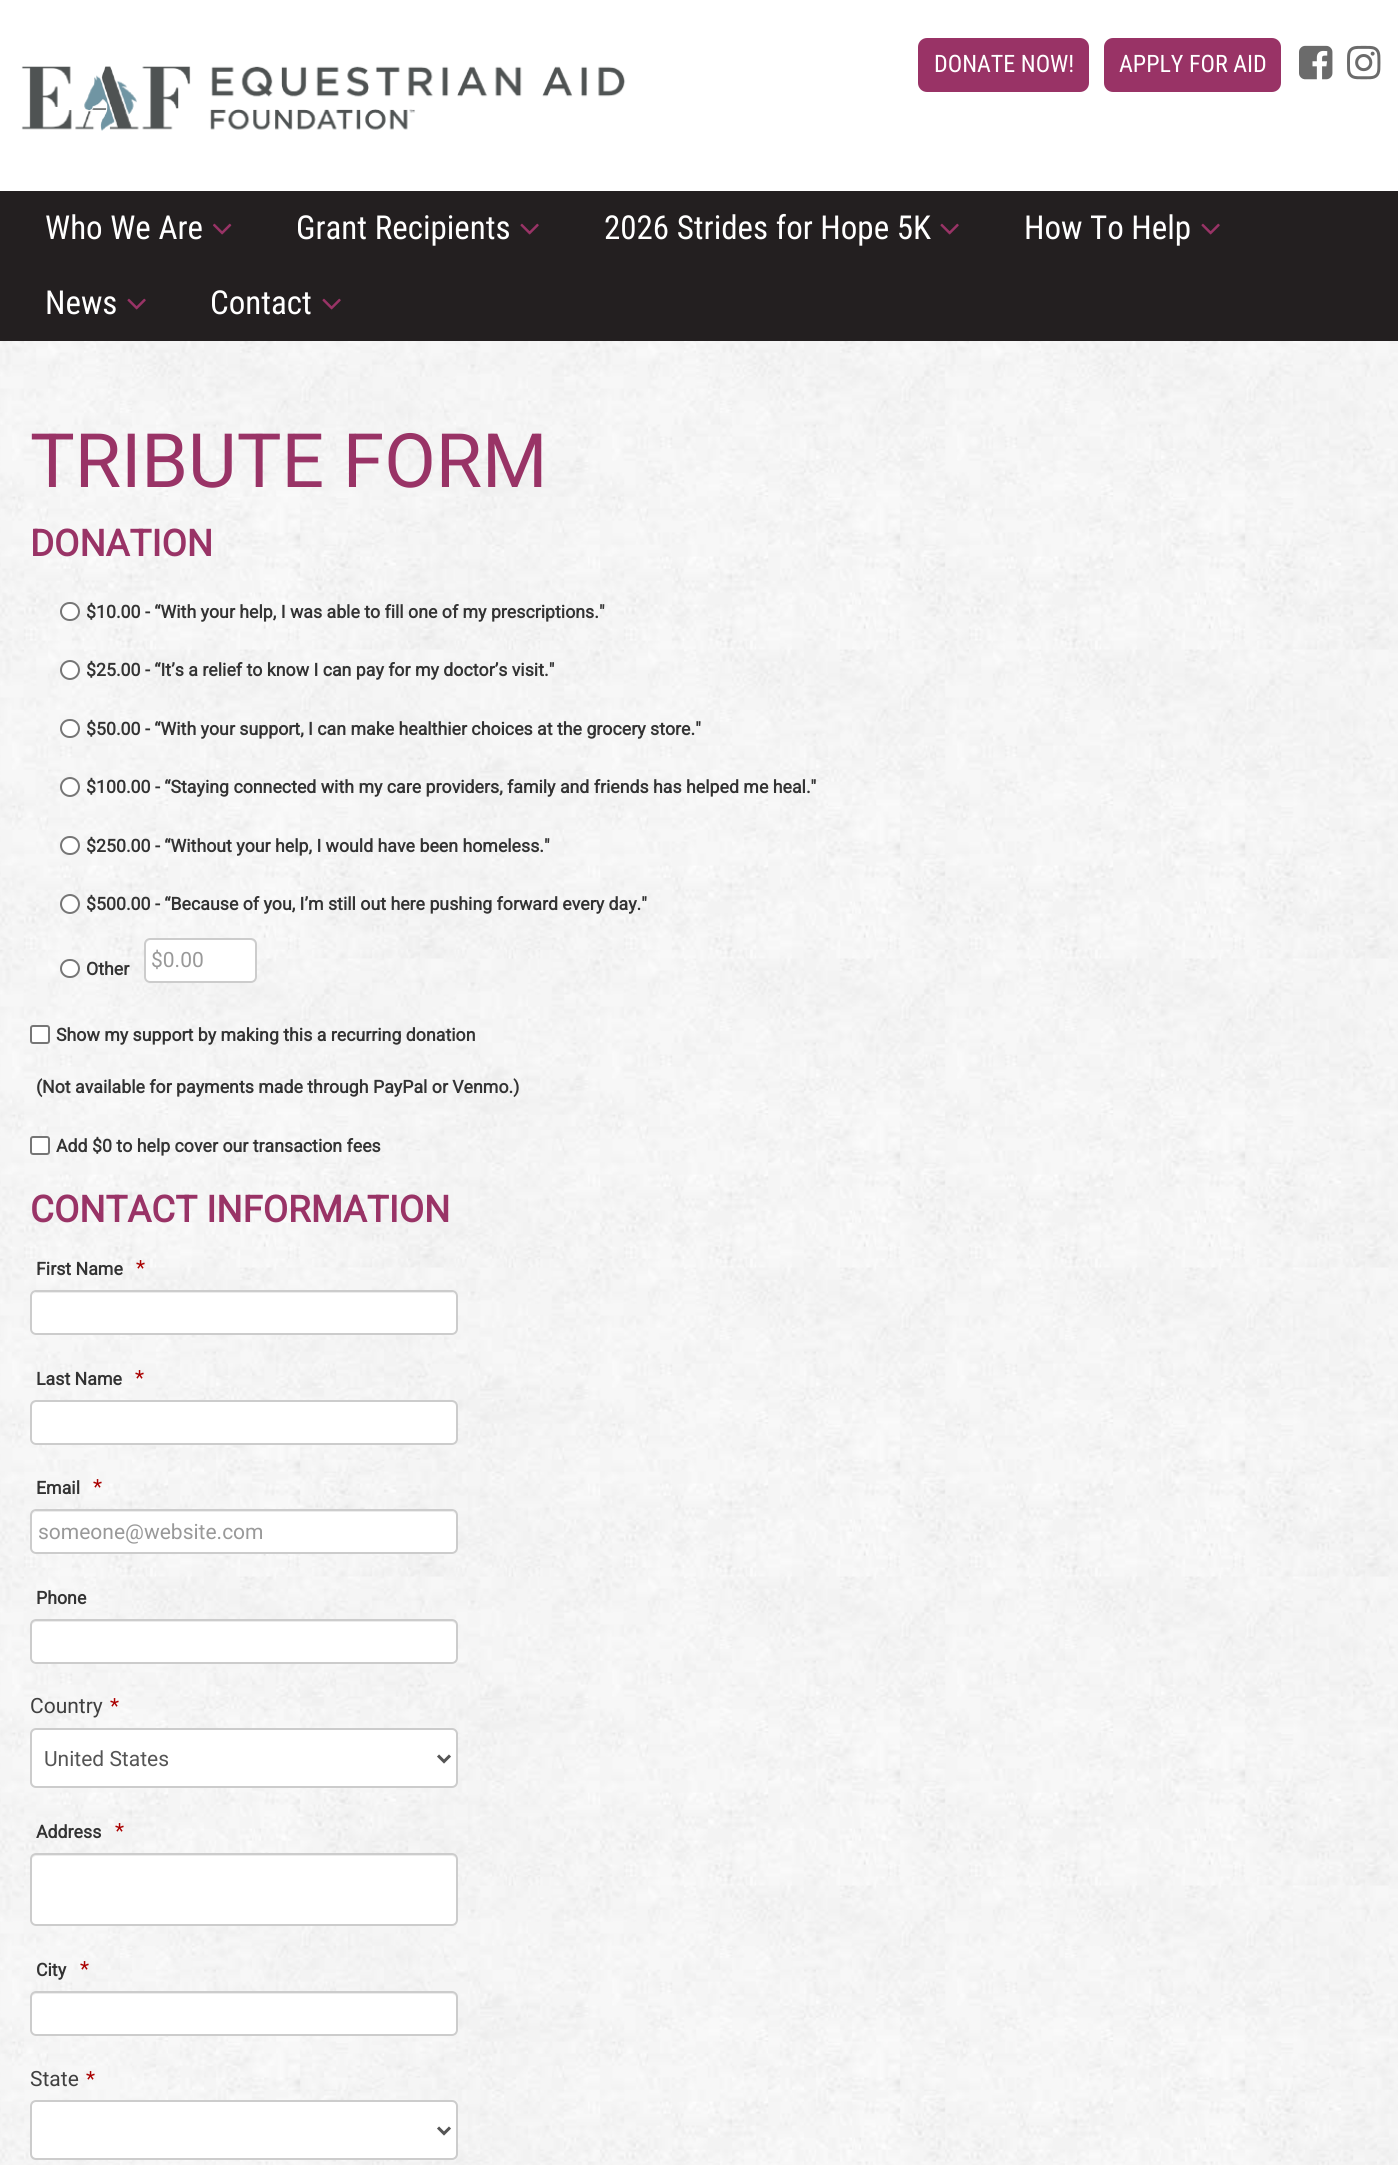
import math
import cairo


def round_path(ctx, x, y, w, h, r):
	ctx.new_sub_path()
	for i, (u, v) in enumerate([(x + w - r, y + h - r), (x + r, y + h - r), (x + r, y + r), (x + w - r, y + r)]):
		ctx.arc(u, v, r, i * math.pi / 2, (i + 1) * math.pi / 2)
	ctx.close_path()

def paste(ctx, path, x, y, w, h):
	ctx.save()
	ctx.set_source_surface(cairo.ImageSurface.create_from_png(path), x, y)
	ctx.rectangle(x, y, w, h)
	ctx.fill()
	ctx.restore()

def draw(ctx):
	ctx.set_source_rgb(1, 1, 1)
	ctx.paint()
	ctx.set_source_rgb(0.6, 0.2, 0.4)
	round_path(ctx, 918, 38, 171, 54, 9)
	ctx.fill()
	ctx.select_font_face('Roboto Condensed')
	ctx.set_font_size(24)
	ctx.set_source_rgb(1, 1, 1)
	ctx.move_to(934, 72)
	ctx.show_text('DONATE NOW!')
	ctx.set_source_rgb(0.6, 0.2, 0.4)
	round_path(ctx, 1104, 38, 177, 54, 9)
	ctx.fill()
	ctx.set_source_rgb(1, 1, 1)
	ctx.move_to(1119, 72)
	ctx.show_text('APPLY FOR AID')
	paste(ctx, 'media/1.png', 1299, 45, 34, 35)
	paste(ctx, 'media/2.png', 1347, 45, 34, 35)
	ctx.set_source_rgb(0.137, 0.122, 0.125)
	ctx.rectangle(0, 191, 1398, 150)
	ctx.fill()
	ctx.set_font_size(33)
	ctx.set_source_rgb(1, 1, 1)
	ctx.move_to(45, 239)
	ctx.show_text('Who We Are')
	paste(ctx, 'media/3.png', 213, 223, 19, 12)
	ctx.move_to(296, 239)
	ctx.show_text('Grant Recipients')
	paste(ctx, 'media/4.png', 520, 223, 19, 12)
	ctx.move_to(604, 239)
	ctx.show_text('2026 Strides for Hope 5K')
	paste(ctx, 'media/4.png', 940, 223, 19, 12)
	ctx.move_to(1024, 239)
	ctx.show_text('How To Help')
	paste(ctx, 'media/4.png', 1201, 223, 19, 12)
	ctx.move_to(45, 314)
	ctx.show_text('News')
	paste(ctx, 'media/4.png', 127, 298, 19, 12)
	ctx.move_to(210, 314)
	ctx.show_text('Contact')
	paste(ctx, 'media/4.png', 322, 298, 19, 12)
	paste(ctx, 'media/5.png', 21, 66, 605, 65)
	paste(ctx, 'media/6.png', 0, 341, 1398, 1824)
	ctx.select_font_face('Roboto')
	ctx.set_font_size(75)
	ctx.set_source_rgb(0.6, 0.2, 0.4)
	ctx.move_to(30, 487)
	ctx.show_text('TRIBUTE FORM')
	ctx.select_font_face('Roboto', cairo.FONT_SLANT_NORMAL, cairo.FONT_WEIGHT_BOLD)
	ctx.set_font_size(36.75)
	ctx.move_to(30, 556)
	ctx.show_text('DONATION')
	ctx.set_source_rgb(1, 1, 1)
	round_path(ctx, 61, 603, 18, 17, 8.5)
	ctx.fill_preserve()
	ctx.set_source_rgb(0.463, 0.463, 0.463)
	ctx.stroke()
	ctx.set_font_size(17.75)
	ctx.set_source_rgb(0.2, 0.2, 0.2)
	ctx.move_to(86, 618)
	ctx.show_text('$10.00 - “With your help, I was able to fill one of my prescriptions."')
	ctx.set_source_rgb(1, 1, 1)
	ctx.new_path()
	ctx.arc(70, 670, 9, 0, 2 * math.pi)
	ctx.fill_preserve()
	ctx.set_source_rgb(0.463, 0.463, 0.463)
	ctx.stroke()
	ctx.set_source_rgb(0.2, 0.2, 0.2)
	ctx.move_to(86, 676)
	ctx.show_text('$25.00 - “It’s a relief to know I can pay for my doctor’s visit."')
	ctx.set_source_rgb(1, 1, 1)
	round_path(ctx, 61, 720, 18, 17, 8.5)
	ctx.fill_preserve()
	ctx.set_source_rgb(0.463, 0.463, 0.463)
	ctx.stroke()
	ctx.set_source_rgb(0.2, 0.2, 0.2)
	ctx.move_to(86, 735)
	ctx.show_text('$50.00 - “With your support, I can make healthier choices at the grocery store."')
	ctx.set_source_rgb(1, 1, 1)
	ctx.new_path()
	ctx.arc(70, 787, 9, 0, 2 * math.pi)
	ctx.fill_preserve()
	ctx.set_source_rgb(0.463, 0.463, 0.463)
	ctx.stroke()
	ctx.set_source_rgb(0.2, 0.2, 0.2)
	ctx.move_to(86, 793)
	ctx.show_text('$100.00 - “Staying connected with my care providers, family and friends has helped me heal."')
	ctx.set_source_rgb(1, 1, 1)
	round_path(ctx, 61, 837, 18, 17, 8.5)
	ctx.fill_preserve()
	ctx.set_source_rgb(0.463, 0.463, 0.463)
	ctx.stroke()
	ctx.set_source_rgb(0.2, 0.2, 0.2)
	ctx.move_to(86, 852)
	ctx.show_text('$250.00 - “Without your help, I would have been homeless."')
	ctx.set_source_rgb(1, 1, 1)
	ctx.new_path()
	ctx.arc(70, 904, 9, 0, 2 * math.pi)
	ctx.fill_preserve()
	ctx.set_source_rgb(0.463, 0.463, 0.463)
	ctx.stroke()
	ctx.set_source_rgb(0.2, 0.2, 0.2)
	ctx.move_to(86, 910)
	ctx.show_text('$500.00 - “Because of you, I’m still out here pushing forward every day."')
	ctx.set_source_rgb(1, 1, 1)
	round_path(ctx, 61, 960, 18, 17, 8.5)
	ctx.fill_preserve()
	ctx.set_source_rgb(0.463, 0.463, 0.463)
	ctx.stroke()
	ctx.set_source_rgb(0.2, 0.2, 0.2)
	ctx.move_to(86, 975)
	ctx.show_text('Other')
	ctx.set_source_rgb(1, 1, 1)
	round_path(ctx, 144, 938, 113, 45, 6)
	ctx.fill()
	ctx.set_source_rgb(0.925, 0.925, 0.925)
	ctx.new_path()
	ctx.move_to(150, 940)
	ctx.line_to(250, 940)
	ctx.curve_to(253, 940, 255, 943, 255, 945)
	ctx.curve_to(255, 935, 239, 939, 234, 939)
	ctx.line_to(168, 939)
	ctx.curve_to(162, 939, 146, 935, 146, 945)
	ctx.curve_to(146, 943, 148, 940, 150, 940)
	ctx.close_path()
	ctx.fill()
	round_path(ctx, 145, 939, 111, 43, 5)
	ctx.set_source_rgb(0.8, 0.8, 0.8)
	ctx.stroke()
	ctx.select_font_face('Roboto')
	ctx.set_font_size(21)
	ctx.set_source_rgb(0.6, 0.6, 0.6)
	ctx.move_to(151, 967)
	ctx.show_text('$0.00')
	ctx.set_source_rgb(1, 1, 1)
	round_path(ctx, 31, 1026, 18, 17, 2)
	ctx.fill_preserve()
	ctx.set_source_rgb(0.463, 0.463, 0.463)
	ctx.stroke()
	ctx.select_font_face('Roboto', cairo.FONT_SLANT_NORMAL, cairo.FONT_WEIGHT_BOLD)
	ctx.set_font_size(17.75)
	ctx.set_source_rgb(0.2, 0.2, 0.2)
	ctx.move_to(56, 1041)
	ctx.show_text('Show my support by making this a recurring donation')
	ctx.move_to(36, 1093)
	ctx.show_text('(Not available for payments made through PayPal or Venmo.)')
	ctx.set_source_rgb(1, 1, 1)
	round_path(ctx, 31, 1137, 18, 17, 2)
	ctx.fill_preserve()
	ctx.set_source_rgb(0.463, 0.463, 0.463)
	ctx.stroke()
	ctx.set_source_rgb(0.2, 0.2, 0.2)
	ctx.move_to(56, 1152)
	ctx.show_text('Add $0 to help cover our transaction fees')
	ctx.set_font_size(36.75)
	ctx.set_source_rgb(0.6, 0.2, 0.4)
	ctx.move_to(30, 1222)
	ctx.show_text('CONTACT INFORMATION')
	ctx.set_font_size(17.75)
	ctx.set_source_rgb(0.2, 0.2, 0.2)
	ctx.move_to(36, 1275)
	ctx.show_text('First Name')
	ctx.select_font_face('Roboto')
	ctx.set_font_size(21)
	ctx.set_source_rgb(0.667, 0, 0)
	ctx.move_to(136, 1275)
	ctx.show_text('*')
	ctx.set_source_rgb(1, 1, 1)
	round_path(ctx, 30, 1290, 428, 45, 6)
	ctx.fill()
	ctx.set_source_rgb(0.925, 0.925, 0.925)
	ctx.new_path()
	ctx.move_to(36, 1293)
	ctx.line_to(452, 1293)
	ctx.curve_to(454, 1293, 456, 1295, 456, 1298)
	ctx.curve_to(456, 1295, 454, 1292, 451, 1292)
	ctx.line_to(37, 1292)
	ctx.curve_to(34, 1292, 32, 1295, 32, 1298)
	ctx.curve_to(32, 1295, 34, 1293, 36, 1293)
	ctx.close_path()
	ctx.fill()
	round_path(ctx, 31, 1291, 426, 43, 5)
	ctx.set_source_rgb(0.8, 0.8, 0.8)
	ctx.stroke()
	ctx.select_font_face('Roboto', cairo.FONT_SLANT_NORMAL, cairo.FONT_WEIGHT_BOLD)
	ctx.set_font_size(17.75)
	ctx.set_source_rgb(0.2, 0.2, 0.2)
	ctx.move_to(36, 1385)
	ctx.show_text('Last Name')
	ctx.select_font_face('Roboto')
	ctx.set_font_size(21)
	ctx.set_source_rgb(0.667, 0, 0)
	ctx.move_to(135, 1385)
	ctx.show_text('*')
	ctx.set_source_rgb(1, 1, 1)
	round_path(ctx, 30, 1400, 428, 45, 6)
	ctx.fill()
	ctx.set_source_rgb(0.925, 0.925, 0.925)
	ctx.new_path()
	ctx.move_to(36, 1402)
	ctx.line_to(452, 1402)
	ctx.curve_to(454, 1402, 456, 1405, 456, 1407)
	ctx.curve_to(456, 1404, 454, 1401, 451, 1401)
	ctx.line_to(37, 1401)
	ctx.curve_to(34, 1401, 32, 1404, 32, 1407)
	ctx.curve_to(32, 1405, 34, 1402, 36, 1402)
	ctx.close_path()
	ctx.fill()
	round_path(ctx, 31, 1401, 426, 43, 5)
	ctx.set_source_rgb(0.8, 0.8, 0.8)
	ctx.stroke()
	ctx.select_font_face('Roboto', cairo.FONT_SLANT_NORMAL, cairo.FONT_WEIGHT_BOLD)
	ctx.set_font_size(17.75)
	ctx.set_source_rgb(0.2, 0.2, 0.2)
	ctx.move_to(36, 1494)
	ctx.show_text('Email')
	ctx.select_font_face('Roboto')
	ctx.set_font_size(21)
	ctx.set_source_rgb(0.667, 0, 0)
	ctx.move_to(93, 1494)
	ctx.show_text('*')
	ctx.set_source_rgb(1, 1, 1)
	round_path(ctx, 30, 1509, 428, 45, 6)
	ctx.fill()
	ctx.set_source_rgb(0.925, 0.925, 0.925)
	ctx.new_path()
	ctx.move_to(36, 1512)
	ctx.line_to(452, 1512)
	ctx.curve_to(454, 1512, 456, 1514, 456, 1516)
	ctx.curve_to(456, 1513, 454, 1511, 451, 1511)
	ctx.line_to(37, 1511)
	ctx.curve_to(34, 1511, 32, 1513, 32, 1516)
	ctx.curve_to(32, 1514, 34, 1512, 36, 1512)
	ctx.close_path()
	ctx.fill()
	round_path(ctx, 31, 1510, 426, 43, 5)
	ctx.set_source_rgb(0.8, 0.8, 0.8)
	ctx.stroke()
	ctx.set_source_rgb(0.6, 0.6, 0.6)
	ctx.move_to(38, 1539)
	ctx.show_text('someone@website.com')
	ctx.select_font_face('Roboto', cairo.FONT_SLANT_NORMAL, cairo.FONT_WEIGHT_BOLD)
	ctx.set_font_size(17.75)
	ctx.set_source_rgb(0.2, 0.2, 0.2)
	ctx.move_to(36, 1604)
	ctx.show_text('Phone')
	ctx.set_source_rgb(1, 1, 1)
	round_path(ctx, 30, 1619, 428, 45, 6)
	ctx.fill()
	ctx.set_source_rgb(0.925, 0.925, 0.925)
	ctx.new_path()
	ctx.move_to(36, 1622)
	ctx.line_to(452, 1622)
	ctx.curve_to(454, 1622, 456, 1624, 456, 1626)
	ctx.curve_to(456, 1623, 454, 1620, 451, 1620)
	ctx.line_to(37, 1620)
	ctx.curve_to(34, 1620, 32, 1623, 32, 1626)
	ctx.curve_to(32, 1624, 34, 1622, 36, 1622)
	ctx.close_path()
	ctx.fill()
	round_path(ctx, 31, 1620, 426, 43, 5)
	ctx.set_source_rgb(0.8, 0.8, 0.8)
	ctx.stroke()
	ctx.select_font_face('Roboto')
	ctx.set_font_size(21)
	ctx.set_source_rgb(0.251, 0.251, 0.251)
	ctx.move_to(30, 1713)
	ctx.show_text('Country')
	ctx.set_source_rgb(0.667, 0, 0)
	ctx.move_to(110, 1713)
	ctx.show_text('*')
	ctx.set_source_rgb(1, 1, 1)
	round_path(ctx, 31, 1729, 426, 58, 5)
	ctx.fill_preserve()
	ctx.set_source_rgb(0.8, 0.8, 0.8)
	ctx.stroke()
	ctx.new_path()
	ctx.move_to(438, 1755.5)
	ctx.line_to(444, 1761.5)
	ctx.line_to(450, 1755.5)
	ctx.set_source_rgb(0.333, 0.333, 0.333)
	ctx.set_line_width(3)
	ctx.stroke()
	ctx.move_to(44, 1766)
	ctx.show_text('United States')
	ctx.select_font_face('Roboto', cairo.FONT_SLANT_NORMAL, cairo.FONT_WEIGHT_BOLD)
	ctx.set_font_size(17.75)
	ctx.set_source_rgb(0.2, 0.2, 0.2)
	ctx.move_to(36, 1838)
	ctx.show_text('Address')
	ctx.select_font_face('Roboto')
	ctx.set_font_size(21)
	ctx.set_source_rgb(0.667, 0, 0)
	ctx.move_to(115, 1838)
	ctx.show_text('*')
	ctx.set_source_rgb(1, 1, 1)
	round_path(ctx, 30, 1853, 428, 73, 6)
	ctx.fill()
	ctx.set_source_rgb(0.925, 0.925, 0.925)
	ctx.new_path()
	ctx.move_to(36, 1856)
	ctx.line_to(452, 1856)
	ctx.curve_to(454, 1856, 456, 1858, 456, 1860)
	ctx.curve_to(456, 1857, 454, 1854, 451, 1854)
	ctx.line_to(37, 1854)
	ctx.curve_to(34, 1854, 32, 1857, 32, 1860)
	ctx.curve_to(32, 1858, 34, 1856, 36, 1856)
	ctx.close_path()
	ctx.fill()
	round_path(ctx, 31, 1854, 426, 71, 5)
	ctx.set_source_rgb(0.8, 0.8, 0.8)
	ctx.set_line_width(2)
	ctx.stroke()
	ctx.select_font_face('Roboto', cairo.FONT_SLANT_NORMAL, cairo.FONT_WEIGHT_BOLD)
	ctx.set_font_size(17.75)
	ctx.set_source_rgb(0.2, 0.2, 0.2)
	ctx.move_to(36, 1976)
	ctx.show_text('City')
	ctx.select_font_face('Roboto')
	ctx.set_font_size(21)
	ctx.set_source_rgb(0.667, 0, 0)
	ctx.move_to(80, 1976)
	ctx.show_text('*')
	ctx.set_source_rgb(1, 1, 1)
	round_path(ctx, 30, 1991, 428, 45, 6)
	ctx.fill()
	ctx.set_source_rgb(0.925, 0.925, 0.925)
	ctx.new_path()
	ctx.move_to(36, 1994)
	ctx.line_to(452, 1994)
	ctx.curve_to(454, 1994, 456, 1996, 456, 1998)
	ctx.curve_to(456, 1995, 454, 1992, 451, 1992)
	ctx.line_to(37, 1992)
	ctx.curve_to(34, 1992, 32, 1995, 32, 1998)
	ctx.curve_to(32, 1996, 34, 1994, 36, 1994)
	ctx.close_path()
	ctx.fill()
	round_path(ctx, 31, 1992, 426, 43, 5)
	ctx.set_source_rgb(0.8, 0.8, 0.8)
	ctx.stroke()
	ctx.set_source_rgb(0.251, 0.251, 0.251)
	ctx.move_to(30, 2086)
	ctx.show_text('State')
	ctx.set_source_rgb(0.667, 0, 0)
	ctx.move_to(86, 2086)
	ctx.show_text('*')
	ctx.set_source_rgb(1, 1, 1)
	round_path(ctx, 31, 2101, 426, 58, 5)
	ctx.fill_preserve()
	ctx.set_source_rgb(0.8, 0.8, 0.8)
	ctx.stroke()
	ctx.new_path()
	ctx.move_to(438, 2127.5)
	ctx.line_to(444, 2133.5)
	ctx.line_to(450, 2127.5)
	ctx.set_source_rgb(0.333, 0.333, 0.333)
	ctx.set_line_width(3)
	ctx.stroke()


surface = cairo.ImageSurface(cairo.FORMAT_RGB24, 1398, 2165)
ctx = cairo.Context(surface)
options = cairo.FontOptions()
options.set_hint_metrics(cairo.HINT_METRICS_OFF)
options.set_hint_style(cairo.HINT_STYLE_NONE)
ctx.set_font_options(options)
ctx.set_miter_limit(4)
draw(ctx)
surface.write_to_png('image.png')
